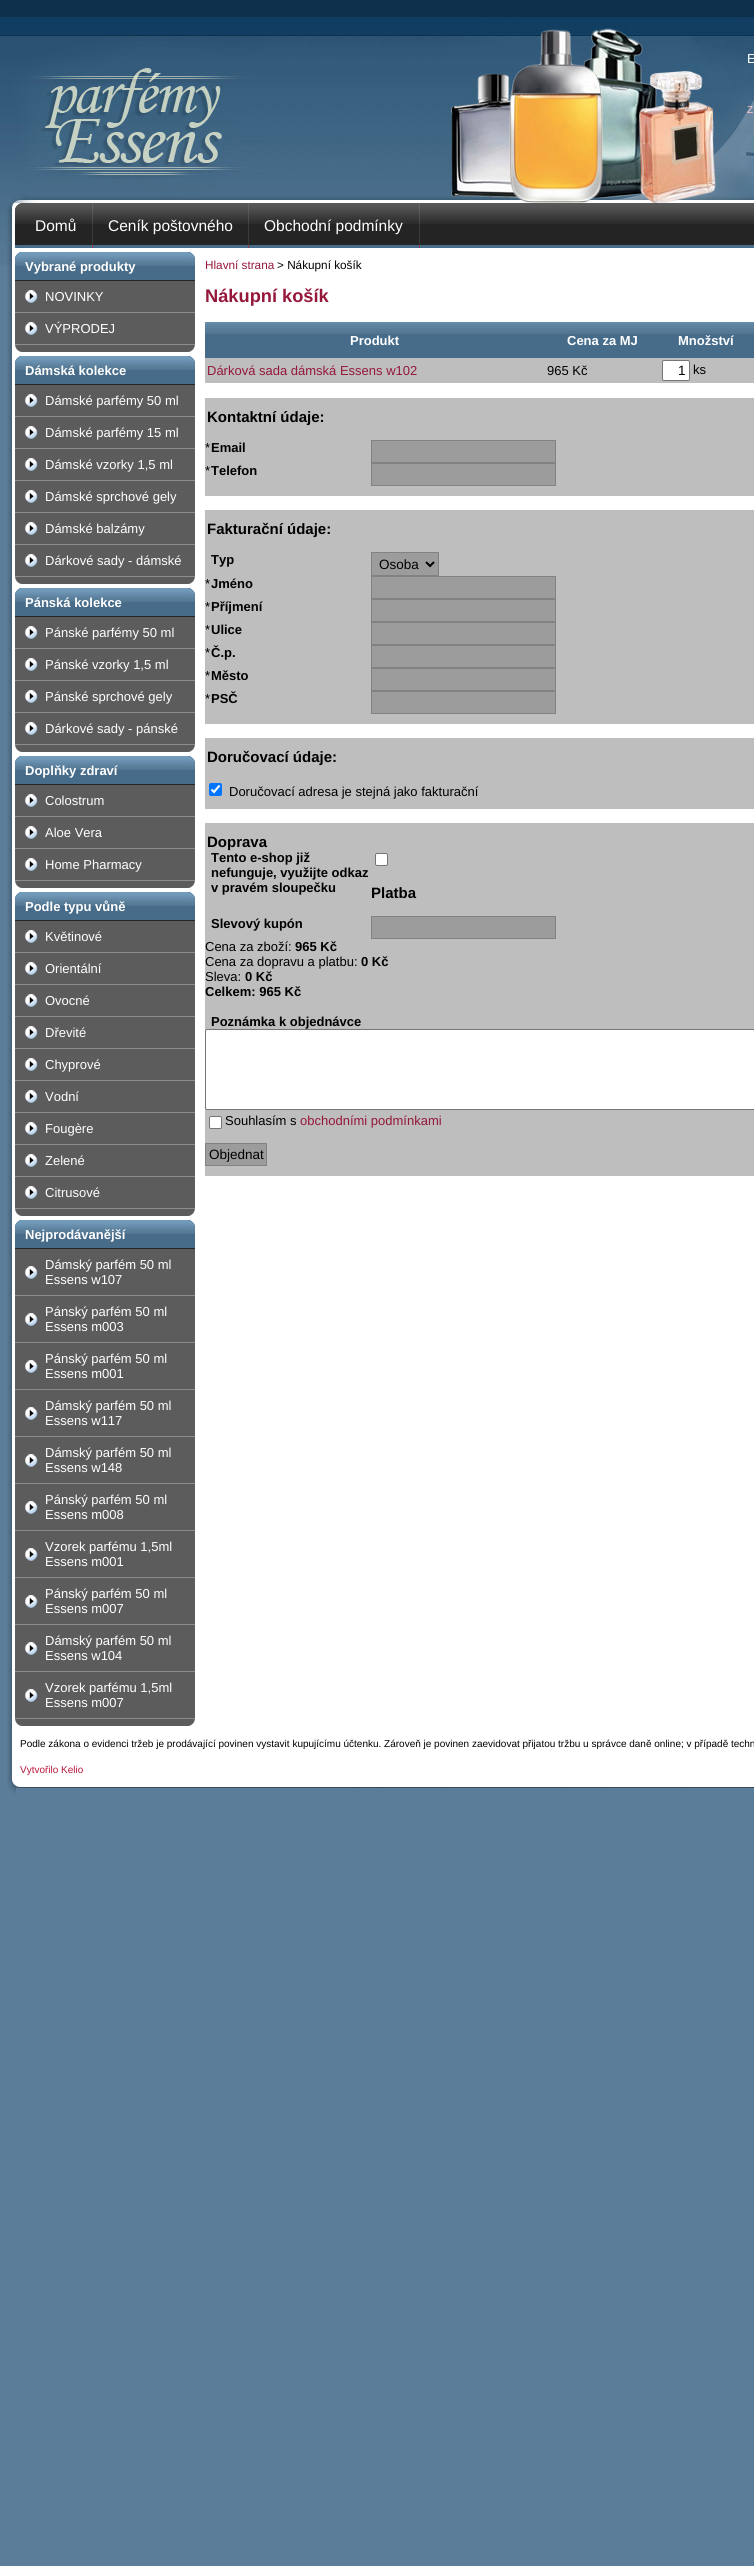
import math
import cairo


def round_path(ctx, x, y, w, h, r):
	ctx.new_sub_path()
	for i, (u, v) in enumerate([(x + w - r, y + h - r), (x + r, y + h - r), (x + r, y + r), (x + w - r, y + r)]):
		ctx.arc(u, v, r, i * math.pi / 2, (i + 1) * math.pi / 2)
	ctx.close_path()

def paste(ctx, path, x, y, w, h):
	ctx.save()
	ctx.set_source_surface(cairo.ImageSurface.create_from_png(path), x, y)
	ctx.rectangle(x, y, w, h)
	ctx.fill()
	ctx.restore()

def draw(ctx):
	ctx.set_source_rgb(0.357, 0.49, 0.6)
	ctx.paint()
	paste(ctx, 'media/1.png', 0, 0, 754, 266)
	paste(ctx, 'media/2.png', 0, 19, 754, 184)
	ctx.select_font_face('Liberation Sans')
	ctx.set_font_size(13)
	ctx.set_source_rgb(1, 1, 1)
	ctx.move_to(747, 63)
	ctx.show_text('E')
	ctx.set_font_size(10)
	ctx.set_source_rgb(0.996, 0.792, 0.808)
	ctx.move_to(747, 113)
	ctx.show_text('Z')
	paste(ctx, 'media/3.png', 21, 203, 733, 45)
	paste(ctx, 'media/4.png', 0, 203, 21, 45)
	paste(ctx, 'media/5.png', 92, 203, 1, 45)
	ctx.set_font_size(15.5)
	ctx.set_source_rgb(1, 1, 1)
	ctx.move_to(35, 231)
	ctx.show_text('Domů')
	paste(ctx, 'media/5.png', 248, 203, 1, 45)
	ctx.move_to(108, 231)
	ctx.show_text('Ceník poštovného')
	paste(ctx, 'media/5.png', 419, 203, 1, 45)
	ctx.move_to(264, 231)
	ctx.show_text('Obchodní podmínky')
	paste(ctx, 'media/6.png', 7, 248, 747, 1478)
	ctx.set_source_rgb(0.361, 0.361, 0.361)
	ctx.rectangle(15, 281, 180, 63)
	ctx.fill()
	paste(ctx, 'media/7.png', 15, 345, 180, 7)
	paste(ctx, 'media/8.png', 15, 252, 180, 29)
	ctx.select_font_face('Liberation Sans', cairo.FONT_SLANT_NORMAL, cairo.FONT_WEIGHT_BOLD)
	ctx.set_font_size(13)
	ctx.set_source_rgb(1, 1, 1)
	ctx.move_to(25, 271)
	ctx.show_text('Vybrané produkty')
	ctx.set_source_rgb(0.549, 0.549, 0.549)
	ctx.rectangle(15, 312, 180, 1)
	ctx.fill()
	paste(ctx, 'media/9.png', 25, 290, 13, 13)
	ctx.select_font_face('Liberation Sans')
	ctx.set_source_rgb(1, 1, 1)
	ctx.move_to(45, 301)
	ctx.show_text('NOVINKY')
	ctx.set_source_rgb(0.549, 0.549, 0.549)
	ctx.rectangle(15, 344, 180, 1)
	ctx.fill()
	paste(ctx, 'media/9.png', 25, 322, 13, 13)
	ctx.set_source_rgb(1, 1, 1)
	ctx.move_to(45, 333)
	ctx.show_text('VÝPRODEJ')
	ctx.set_source_rgb(0.361, 0.361, 0.361)
	ctx.rectangle(15, 385, 180, 191)
	ctx.fill()
	paste(ctx, 'media/7.png', 15, 577, 180, 7)
	paste(ctx, 'media/8.png', 15, 356, 180, 29)
	ctx.select_font_face('Liberation Sans', cairo.FONT_SLANT_NORMAL, cairo.FONT_WEIGHT_BOLD)
	ctx.set_source_rgb(1, 1, 1)
	ctx.move_to(25, 375)
	ctx.show_text('Dámská kolekce')
	ctx.set_source_rgb(0.549, 0.549, 0.549)
	ctx.rectangle(15, 416, 180, 1)
	ctx.fill()
	paste(ctx, 'media/9.png', 25, 394, 13, 13)
	ctx.select_font_face('Liberation Sans')
	ctx.set_source_rgb(1, 1, 1)
	ctx.move_to(45, 405)
	ctx.show_text('Dámské parfémy 50 ml')
	ctx.set_source_rgb(0.549, 0.549, 0.549)
	ctx.rectangle(15, 448, 180, 1)
	ctx.fill()
	paste(ctx, 'media/9.png', 25, 426, 13, 13)
	ctx.set_source_rgb(1, 1, 1)
	ctx.move_to(45, 437)
	ctx.show_text('Dámské parfémy 15 ml')
	ctx.set_source_rgb(0.549, 0.549, 0.549)
	ctx.rectangle(15, 480, 180, 1)
	ctx.fill()
	paste(ctx, 'media/9.png', 25, 458, 13, 13)
	ctx.set_source_rgb(1, 1, 1)
	ctx.move_to(45, 469)
	ctx.show_text('Dámské vzorky 1,5 ml')
	ctx.set_source_rgb(0.549, 0.549, 0.549)
	ctx.rectangle(15, 512, 180, 1)
	ctx.fill()
	paste(ctx, 'media/9.png', 25, 490, 13, 13)
	ctx.set_source_rgb(1, 1, 1)
	ctx.move_to(45, 501)
	ctx.show_text('Dámské sprchové gely')
	ctx.set_source_rgb(0.549, 0.549, 0.549)
	ctx.rectangle(15, 544, 180, 1)
	ctx.fill()
	paste(ctx, 'media/9.png', 25, 522, 13, 13)
	ctx.set_source_rgb(1, 1, 1)
	ctx.move_to(45, 533)
	ctx.show_text('Dámské balzámy')
	ctx.set_source_rgb(0.549, 0.549, 0.549)
	ctx.rectangle(15, 576, 180, 1)
	ctx.fill()
	paste(ctx, 'media/9.png', 25, 554, 13, 13)
	ctx.set_source_rgb(1, 1, 1)
	ctx.move_to(45, 565)
	ctx.show_text('Dárkové sady - dámské')
	ctx.set_source_rgb(0.361, 0.361, 0.361)
	ctx.rectangle(15, 617, 180, 127)
	ctx.fill()
	paste(ctx, 'media/7.png', 15, 745, 180, 7)
	paste(ctx, 'media/8.png', 15, 588, 180, 29)
	ctx.select_font_face('Liberation Sans', cairo.FONT_SLANT_NORMAL, cairo.FONT_WEIGHT_BOLD)
	ctx.set_source_rgb(1, 1, 1)
	ctx.move_to(25, 607)
	ctx.show_text('Pánská kolekce')
	ctx.set_source_rgb(0.549, 0.549, 0.549)
	ctx.rectangle(15, 648, 180, 1)
	ctx.fill()
	paste(ctx, 'media/9.png', 25, 626, 13, 13)
	ctx.select_font_face('Liberation Sans')
	ctx.set_source_rgb(1, 1, 1)
	ctx.move_to(45, 637)
	ctx.show_text('Pánské parfémy 50 ml')
	ctx.set_source_rgb(0.549, 0.549, 0.549)
	ctx.rectangle(15, 680, 180, 1)
	ctx.fill()
	paste(ctx, 'media/9.png', 25, 658, 13, 13)
	ctx.set_source_rgb(1, 1, 1)
	ctx.move_to(45, 669)
	ctx.show_text('Pánské vzorky 1,5 ml')
	ctx.set_source_rgb(0.549, 0.549, 0.549)
	ctx.rectangle(15, 712, 180, 1)
	ctx.fill()
	paste(ctx, 'media/9.png', 25, 690, 13, 13)
	ctx.set_source_rgb(1, 1, 1)
	ctx.move_to(45, 701)
	ctx.show_text('Pánské sprchové gely')
	ctx.set_source_rgb(0.549, 0.549, 0.549)
	ctx.rectangle(15, 744, 180, 1)
	ctx.fill()
	paste(ctx, 'media/9.png', 25, 722, 13, 13)
	ctx.set_source_rgb(1, 1, 1)
	ctx.move_to(45, 733)
	ctx.show_text('Dárkové sady - pánské')
	ctx.set_source_rgb(0.361, 0.361, 0.361)
	ctx.rectangle(15, 785, 180, 95)
	ctx.fill()
	paste(ctx, 'media/7.png', 15, 881, 180, 7)
	paste(ctx, 'media/8.png', 15, 756, 180, 29)
	ctx.select_font_face('Liberation Sans', cairo.FONT_SLANT_NORMAL, cairo.FONT_WEIGHT_BOLD)
	ctx.set_source_rgb(1, 1, 1)
	ctx.move_to(25, 775)
	ctx.show_text('Doplňky zdraví')
	ctx.set_source_rgb(0.549, 0.549, 0.549)
	ctx.rectangle(15, 816, 180, 1)
	ctx.fill()
	paste(ctx, 'media/9.png', 25, 794, 13, 13)
	ctx.select_font_face('Liberation Sans')
	ctx.set_source_rgb(1, 1, 1)
	ctx.move_to(45, 805)
	ctx.show_text('Colostrum')
	ctx.set_source_rgb(0.549, 0.549, 0.549)
	ctx.rectangle(15, 848, 180, 1)
	ctx.fill()
	paste(ctx, 'media/9.png', 25, 826, 13, 13)
	ctx.set_source_rgb(1, 1, 1)
	ctx.move_to(45, 837)
	ctx.show_text('Aloe Vera')
	ctx.set_source_rgb(0.549, 0.549, 0.549)
	ctx.rectangle(15, 880, 180, 1)
	ctx.fill()
	paste(ctx, 'media/9.png', 25, 858, 13, 13)
	ctx.set_source_rgb(1, 1, 1)
	ctx.move_to(45, 869)
	ctx.show_text('Home Pharmacy')
	ctx.set_source_rgb(0.361, 0.361, 0.361)
	ctx.rectangle(15, 921, 180, 287)
	ctx.fill()
	paste(ctx, 'media/7.png', 15, 1209, 180, 7)
	paste(ctx, 'media/8.png', 15, 892, 180, 29)
	ctx.select_font_face('Liberation Sans', cairo.FONT_SLANT_NORMAL, cairo.FONT_WEIGHT_BOLD)
	ctx.set_source_rgb(1, 1, 1)
	ctx.move_to(25, 911)
	ctx.show_text('Podle typu vůně')
	ctx.set_source_rgb(0.549, 0.549, 0.549)
	ctx.rectangle(15, 952, 180, 1)
	ctx.fill()
	paste(ctx, 'media/9.png', 25, 930, 13, 13)
	ctx.select_font_face('Liberation Sans')
	ctx.set_source_rgb(1, 1, 1)
	ctx.move_to(45, 941)
	ctx.show_text('Květinové')
	ctx.set_source_rgb(0.549, 0.549, 0.549)
	ctx.rectangle(15, 984, 180, 1)
	ctx.fill()
	paste(ctx, 'media/9.png', 25, 962, 13, 13)
	ctx.set_source_rgb(1, 1, 1)
	ctx.move_to(45, 973)
	ctx.show_text('Orientální')
	ctx.set_source_rgb(0.549, 0.549, 0.549)
	ctx.rectangle(15, 1016, 180, 1)
	ctx.fill()
	paste(ctx, 'media/9.png', 25, 994, 13, 13)
	ctx.set_source_rgb(1, 1, 1)
	ctx.move_to(45, 1005)
	ctx.show_text('Ovocné')
	ctx.set_source_rgb(0.549, 0.549, 0.549)
	ctx.rectangle(15, 1048, 180, 1)
	ctx.fill()
	paste(ctx, 'media/9.png', 25, 1026, 13, 13)
	ctx.set_source_rgb(1, 1, 1)
	ctx.move_to(45, 1037)
	ctx.show_text('Dřevité')
	ctx.set_source_rgb(0.549, 0.549, 0.549)
	ctx.rectangle(15, 1080, 180, 1)
	ctx.fill()
	paste(ctx, 'media/9.png', 25, 1058, 13, 13)
	ctx.set_source_rgb(1, 1, 1)
	ctx.move_to(45, 1069)
	ctx.show_text('Chyprové')
	ctx.set_source_rgb(0.549, 0.549, 0.549)
	ctx.rectangle(15, 1112, 180, 1)
	ctx.fill()
	paste(ctx, 'media/9.png', 25, 1090, 13, 13)
	ctx.set_source_rgb(1, 1, 1)
	ctx.move_to(45, 1101)
	ctx.show_text('Vodní')
	ctx.set_source_rgb(0.549, 0.549, 0.549)
	ctx.rectangle(15, 1144, 180, 1)
	ctx.fill()
	paste(ctx, 'media/9.png', 25, 1122, 13, 13)
	ctx.set_source_rgb(1, 1, 1)
	ctx.move_to(45, 1133)
	ctx.show_text('Fougère')
	ctx.set_source_rgb(0.549, 0.549, 0.549)
	ctx.rectangle(15, 1176, 180, 1)
	ctx.fill()
	paste(ctx, 'media/9.png', 25, 1154, 13, 13)
	ctx.set_source_rgb(1, 1, 1)
	ctx.move_to(45, 1165)
	ctx.show_text('Zelené')
	ctx.set_source_rgb(0.549, 0.549, 0.549)
	ctx.rectangle(15, 1208, 180, 1)
	ctx.fill()
	paste(ctx, 'media/9.png', 25, 1186, 13, 13)
	ctx.set_source_rgb(1, 1, 1)
	ctx.move_to(45, 1197)
	ctx.show_text('Citrusové')
	ctx.set_source_rgb(0.361, 0.361, 0.361)
	ctx.rectangle(15, 1249, 180, 469)
	ctx.fill()
	paste(ctx, 'media/7.png', 15, 1719, 180, 7)
	paste(ctx, 'media/8.png', 15, 1220, 180, 29)
	ctx.select_font_face('Liberation Sans', cairo.FONT_SLANT_NORMAL, cairo.FONT_WEIGHT_BOLD)
	ctx.set_source_rgb(1, 1, 1)
	ctx.move_to(25, 1239)
	ctx.show_text('Nejprodávanější')
	ctx.set_source_rgb(0.549, 0.549, 0.549)
	ctx.rectangle(15, 1295, 180, 1)
	ctx.fill()
	paste(ctx, 'media/9.png', 25, 1266, 13, 13)
	ctx.select_font_face('Liberation Sans')
	ctx.set_source_rgb(1, 1, 1)
	ctx.move_to(45, 1269)
	ctx.show_text('Dámský parfém 50 ml')
	ctx.move_to(45, 1284)
	ctx.show_text('Essens w107')
	ctx.set_source_rgb(0.549, 0.549, 0.549)
	ctx.rectangle(15, 1342, 180, 1)
	ctx.fill()
	paste(ctx, 'media/9.png', 25, 1313, 13, 13)
	ctx.set_source_rgb(1, 1, 1)
	ctx.move_to(45, 1316)
	ctx.show_text('Pánský parfém 50 ml')
	ctx.move_to(45, 1331)
	ctx.show_text('Essens m003')
	ctx.set_source_rgb(0.549, 0.549, 0.549)
	ctx.rectangle(15, 1389, 180, 1)
	ctx.fill()
	paste(ctx, 'media/9.png', 25, 1360, 13, 13)
	ctx.set_source_rgb(1, 1, 1)
	ctx.move_to(45, 1363)
	ctx.show_text('Pánský parfém 50 ml')
	ctx.move_to(45, 1378)
	ctx.show_text('Essens m001')
	ctx.set_source_rgb(0.549, 0.549, 0.549)
	ctx.rectangle(15, 1436, 180, 1)
	ctx.fill()
	paste(ctx, 'media/9.png', 25, 1407, 13, 13)
	ctx.set_source_rgb(1, 1, 1)
	ctx.move_to(45, 1410)
	ctx.show_text('Dámský parfém 50 ml')
	ctx.move_to(45, 1425)
	ctx.show_text('Essens w117')
	ctx.set_source_rgb(0.549, 0.549, 0.549)
	ctx.rectangle(15, 1483, 180, 1)
	ctx.fill()
	paste(ctx, 'media/9.png', 25, 1454, 13, 13)
	ctx.set_source_rgb(1, 1, 1)
	ctx.move_to(45, 1457)
	ctx.show_text('Dámský parfém 50 ml')
	ctx.move_to(45, 1472)
	ctx.show_text('Essens w148')
	ctx.set_source_rgb(0.549, 0.549, 0.549)
	ctx.rectangle(15, 1530, 180, 1)
	ctx.fill()
	paste(ctx, 'media/9.png', 25, 1501, 13, 13)
	ctx.set_source_rgb(1, 1, 1)
	ctx.move_to(45, 1504)
	ctx.show_text('Pánský parfém 50 ml')
	ctx.move_to(45, 1519)
	ctx.show_text('Essens m008')
	ctx.set_source_rgb(0.549, 0.549, 0.549)
	ctx.rectangle(15, 1577, 180, 1)
	ctx.fill()
	paste(ctx, 'media/9.png', 25, 1548, 13, 13)
	ctx.set_source_rgb(1, 1, 1)
	ctx.move_to(45, 1551)
	ctx.show_text('Vzorek parfému 1,5ml')
	ctx.move_to(45, 1566)
	ctx.show_text('Essens m001')
	ctx.set_source_rgb(0.549, 0.549, 0.549)
	ctx.rectangle(15, 1624, 180, 1)
	ctx.fill()
	paste(ctx, 'media/9.png', 25, 1595, 13, 13)
	ctx.set_source_rgb(1, 1, 1)
	ctx.move_to(45, 1598)
	ctx.show_text('Pánský parfém 50 ml')
	ctx.move_to(45, 1613)
	ctx.show_text('Essens m007')
	ctx.set_source_rgb(0.549, 0.549, 0.549)
	ctx.rectangle(15, 1671, 180, 1)
	ctx.fill()
	paste(ctx, 'media/9.png', 25, 1642, 13, 13)
	ctx.set_source_rgb(1, 1, 1)
	ctx.move_to(45, 1645)
	ctx.show_text('Dámský parfém 50 ml')
	ctx.move_to(45, 1660)
	ctx.show_text('Essens w104')
	ctx.set_source_rgb(0.549, 0.549, 0.549)
	ctx.rectangle(15, 1718, 180, 1)
	ctx.fill()
	paste(ctx, 'media/9.png', 25, 1689, 13, 13)
	ctx.set_source_rgb(1, 1, 1)
	ctx.move_to(45, 1692)
	ctx.show_text('Vzorek parfému 1,5ml')
	ctx.move_to(45, 1707)
	ctx.show_text('Essens m007')
	ctx.set_font_size(11.75)
	ctx.set_source_rgb(0.584, 0.094, 0.227)
	ctx.move_to(205, 269)
	ctx.show_text('Hlavní strana')
	ctx.set_source_rgb(0, 0, 0)
	ctx.move_to(277, 269)
	ctx.show_text('> Nákupní košík')
	ctx.select_font_face('Liberation Sans', cairo.FONT_SLANT_NORMAL, cairo.FONT_WEIGHT_BOLD)
	ctx.set_font_size(18.25)
	ctx.set_source_rgb(0.584, 0.094, 0.227)
	ctx.move_to(205, 302)
	ctx.show_text('Nákupní košík')
	paste(ctx, 'media/10.png', 205, 322, 340, 36)
	ctx.set_font_size(13)
	ctx.set_source_rgb(1, 1, 1)
	ctx.move_to(350, 345)
	ctx.show_text('Produkt')
	paste(ctx, 'media/11.png', 545, 322, 115, 36)
	ctx.move_to(567, 345)
	ctx.show_text('Cena za MJ')
	paste(ctx, 'media/12.png', 660, 322, 91, 36)
	ctx.move_to(678, 345)
	ctx.show_text('Množství')
	paste(ctx, 'media/13.png', 751, 322, 3, 36)
	ctx.set_source_rgb(0.745, 0.745, 0.745)
	ctx.rectangle(205, 358, 549, 25)
	ctx.fill()
	ctx.select_font_face('Liberation Sans')
	ctx.set_source_rgb(0.584, 0.094, 0.227)
	ctx.move_to(207, 375)
	ctx.show_text('Dárková sada dámská Essens w102')
	ctx.set_source_rgb(0, 0, 0)
	ctx.move_to(547, 375)
	ctx.show_text('965 Kč')
	ctx.set_source_rgb(1, 1, 1)
	round_path(ctx, 662.5, 360.5, 27, 20, 1.5)
	ctx.fill_preserve()
	ctx.set_source_rgb(0.463, 0.463, 0.463)
	ctx.set_line_width(1)
	ctx.stroke()
	ctx.set_font_size(13.5)
	ctx.set_source_rgb(0, 0, 0)
	ctx.move_to(678, 375)
	ctx.show_text('1')
	ctx.set_font_size(13)
	ctx.move_to(693, 374)
	ctx.show_text('ks')
	ctx.set_source_rgb(0.745, 0.745, 0.745)
	ctx.rectangle(205, 398, 549, 98)
	ctx.fill()
	ctx.select_font_face('Liberation Sans', cairo.FONT_SLANT_NORMAL, cairo.FONT_WEIGHT_BOLD)
	ctx.set_font_size(15)
	ctx.set_source_rgb(0, 0, 0)
	ctx.move_to(207, 422)
	ctx.show_text('Kontaktní údaje:')
	ctx.select_font_face('Liberation Sans')
	ctx.set_font_size(13)
	ctx.move_to(205, 452)
	ctx.show_text('*')
	ctx.select_font_face('Liberation Sans', cairo.FONT_SLANT_NORMAL, cairo.FONT_WEIGHT_BOLD)
	ctx.move_to(211, 452)
	ctx.show_text('Email')
	ctx.set_source_rgb(0.612, 0.612, 0.612)
	ctx.rectangle(371.5, 440.5, 184, 22)
	ctx.fill_preserve()
	ctx.set_source_rgb(0.51, 0.51, 0.51)
	ctx.stroke()
	ctx.select_font_face('Liberation Sans')
	ctx.set_source_rgb(0, 0, 0)
	ctx.move_to(205, 475)
	ctx.show_text('*')
	ctx.select_font_face('Liberation Sans', cairo.FONT_SLANT_NORMAL, cairo.FONT_WEIGHT_BOLD)
	ctx.move_to(211, 475)
	ctx.show_text('Telefon')
	ctx.set_source_rgb(0.612, 0.612, 0.612)
	ctx.rectangle(371.5, 463.5, 184, 22)
	ctx.fill_preserve()
	ctx.set_source_rgb(0.51, 0.51, 0.51)
	ctx.stroke()
	ctx.set_source_rgb(0.745, 0.745, 0.745)
	ctx.rectangle(205, 510, 549, 214)
	ctx.fill()
	ctx.set_font_size(15)
	ctx.set_source_rgb(0, 0, 0)
	ctx.move_to(207, 534)
	ctx.show_text('Fakturační údaje:')
	ctx.set_font_size(13)
	ctx.move_to(211, 564)
	ctx.show_text('Typ')
	ctx.set_source_rgb(0.612, 0.612, 0.612)
	ctx.rectangle(371.5, 552.5, 67, 23)
	ctx.fill_preserve()
	ctx.set_source_rgb(0.51, 0.51, 0.51)
	ctx.stroke()
	ctx.new_path()
	ctx.move_to(426, 562)
	ctx.line_to(430, 566)
	ctx.line_to(434, 562)
	ctx.set_source_rgb(0, 0, 0)
	ctx.set_line_width(2)
	ctx.stroke()
	ctx.select_font_face('Liberation Sans')
	ctx.set_font_size(13.5)
	ctx.move_to(379, 569)
	ctx.show_text('Osoba')
	ctx.set_font_size(13)
	ctx.move_to(205, 588)
	ctx.show_text('*')
	ctx.select_font_face('Liberation Sans', cairo.FONT_SLANT_NORMAL, cairo.FONT_WEIGHT_BOLD)
	ctx.move_to(211, 588)
	ctx.show_text('Jméno')
	ctx.set_source_rgb(0.612, 0.612, 0.612)
	ctx.rectangle(371.5, 576.5, 184, 22)
	ctx.fill_preserve()
	ctx.set_source_rgb(0.51, 0.51, 0.51)
	ctx.set_line_width(1)
	ctx.stroke()
	ctx.select_font_face('Liberation Sans')
	ctx.set_source_rgb(0, 0, 0)
	ctx.move_to(205, 611)
	ctx.show_text('*')
	ctx.select_font_face('Liberation Sans', cairo.FONT_SLANT_NORMAL, cairo.FONT_WEIGHT_BOLD)
	ctx.move_to(211, 611)
	ctx.show_text('Příjmení')
	ctx.set_source_rgb(0.612, 0.612, 0.612)
	ctx.rectangle(371.5, 599.5, 184, 22)
	ctx.fill_preserve()
	ctx.set_source_rgb(0.51, 0.51, 0.51)
	ctx.stroke()
	ctx.select_font_face('Liberation Sans')
	ctx.set_source_rgb(0, 0, 0)
	ctx.move_to(205, 634)
	ctx.show_text('*')
	ctx.select_font_face('Liberation Sans', cairo.FONT_SLANT_NORMAL, cairo.FONT_WEIGHT_BOLD)
	ctx.move_to(211, 634)
	ctx.show_text('Ulice')
	ctx.set_source_rgb(0.612, 0.612, 0.612)
	ctx.rectangle(371.5, 622.5, 184, 22)
	ctx.fill_preserve()
	ctx.set_source_rgb(0.51, 0.51, 0.51)
	ctx.stroke()
	ctx.select_font_face('Liberation Sans')
	ctx.set_source_rgb(0, 0, 0)
	ctx.move_to(205, 657)
	ctx.show_text('*')
	ctx.select_font_face('Liberation Sans', cairo.FONT_SLANT_NORMAL, cairo.FONT_WEIGHT_BOLD)
	ctx.move_to(211, 657)
	ctx.show_text('Č.p.')
	ctx.set_source_rgb(0.612, 0.612, 0.612)
	ctx.rectangle(371.5, 645.5, 184, 22)
	ctx.fill_preserve()
	ctx.set_source_rgb(0.51, 0.51, 0.51)
	ctx.stroke()
	ctx.select_font_face('Liberation Sans')
	ctx.set_source_rgb(0, 0, 0)
	ctx.move_to(205, 680)
	ctx.show_text('*')
	ctx.select_font_face('Liberation Sans', cairo.FONT_SLANT_NORMAL, cairo.FONT_WEIGHT_BOLD)
	ctx.move_to(211, 680)
	ctx.show_text('Město')
	ctx.set_source_rgb(0.612, 0.612, 0.612)
	ctx.rectangle(371.5, 668.5, 184, 22)
	ctx.fill_preserve()
	ctx.set_source_rgb(0.51, 0.51, 0.51)
	ctx.stroke()
	ctx.select_font_face('Liberation Sans')
	ctx.set_source_rgb(0, 0, 0)
	ctx.move_to(205, 703)
	ctx.show_text('*')
	ctx.select_font_face('Liberation Sans', cairo.FONT_SLANT_NORMAL, cairo.FONT_WEIGHT_BOLD)
	ctx.move_to(211, 703)
	ctx.show_text('PSČ')
	ctx.set_source_rgb(0.612, 0.612, 0.612)
	ctx.rectangle(371.5, 691.5, 184, 22)
	ctx.fill_preserve()
	ctx.set_source_rgb(0.51, 0.51, 0.51)
	ctx.stroke()
	ctx.set_source_rgb(0.745, 0.745, 0.745)
	ctx.rectangle(205, 738, 549, 71)
	ctx.fill()
	ctx.set_font_size(15)
	ctx.set_source_rgb(0, 0, 0)
	ctx.move_to(207, 762)
	ctx.show_text('Doručovací údaje:')
	ctx.set_source_rgb(0, 0.459, 1)
	round_path(ctx, 209, 783, 13, 13, 2)
	ctx.fill()
	ctx.new_path()
	ctx.move_to(211.5, 789.5)
	ctx.line_to(214, 792)
	ctx.line_to(219.5, 785.5)
	ctx.set_source_rgb(1, 1, 1)
	ctx.set_line_width(2.1)
	ctx.stroke()
	ctx.select_font_face('Liberation Sans')
	ctx.set_font_size(13)
	ctx.set_source_rgb(0, 0, 0)
	ctx.move_to(229, 796)
	ctx.show_text('Doručovací adresa je stejná jako fakturační')
	ctx.set_source_rgb(0.745, 0.745, 0.745)
	ctx.rectangle(205, 823, 549, 353)
	ctx.fill()
	ctx.select_font_face('Liberation Sans', cairo.FONT_SLANT_NORMAL, cairo.FONT_WEIGHT_BOLD)
	ctx.set_font_size(15)
	ctx.set_source_rgb(0, 0, 0)
	ctx.move_to(207, 847)
	ctx.show_text('Doprava')
	ctx.set_font_size(13)
	for x, y, s in [
		(211, 862, 'Tento e-shop již'),
		(211, 877, 'nefunguje, využijte odkaz'),
		(211, 892, 'v pravém sloupečku'),
	]:
		ctx.move_to(x, y)
		ctx.show_text(s)
	ctx.set_source_rgb(1, 1, 1)
	round_path(ctx, 375.5, 853.5, 12, 12, 1.5)
	ctx.fill_preserve()
	ctx.set_source_rgb(0.463, 0.463, 0.463)
	ctx.set_line_width(1)
	ctx.stroke()
	ctx.set_font_size(15)
	ctx.set_source_rgb(0, 0, 0)
	ctx.move_to(371, 898)
	ctx.show_text('Platba')
	ctx.set_font_size(13)
	ctx.move_to(211, 928)
	ctx.show_text('Slevový kupón')
	ctx.set_source_rgb(0.612, 0.612, 0.612)
	ctx.rectangle(371.5, 916.5, 184, 22)
	ctx.fill_preserve()
	ctx.set_source_rgb(0.51, 0.51, 0.51)
	ctx.stroke()
	ctx.select_font_face('Liberation Sans')
	ctx.set_source_rgb(0, 0, 0)
	ctx.move_to(205, 951)
	ctx.show_text('Cena za zboží:')
	ctx.select_font_face('Liberation Sans', cairo.FONT_SLANT_NORMAL, cairo.FONT_WEIGHT_BOLD)
	ctx.move_to(295, 951)
	ctx.show_text('965 Kč')
	ctx.select_font_face('Liberation Sans')
	ctx.move_to(205, 966)
	ctx.show_text('Cena za dopravu a platbu:')
	ctx.select_font_face('Liberation Sans', cairo.FONT_SLANT_NORMAL, cairo.FONT_WEIGHT_BOLD)
	ctx.move_to(361, 966)
	ctx.show_text('0 Kč')
	ctx.select_font_face('Liberation Sans')
	ctx.move_to(205, 981)
	ctx.show_text('Sleva:')
	ctx.select_font_face('Liberation Sans', cairo.FONT_SLANT_NORMAL, cairo.FONT_WEIGHT_BOLD)
	for x, y, s in [
		(245, 981, '0 Kč'),
		(205, 996, 'Celkem: 965 Kč'),
		(211, 1026, 'Poznámka k objednávce'),
	]:
		ctx.move_to(x, y)
		ctx.show_text(s)
	ctx.set_source_rgb(1, 1, 1)
	round_path(ctx, 205.5, 1029.5, 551, 80, 1.5)
	ctx.fill_preserve()
	ctx.set_source_rgb(0.463, 0.463, 0.463)
	ctx.stroke()
	ctx.set_source_rgb(1, 1, 1)
	round_path(ctx, 209.5, 1116.5, 12, 12, 1.5)
	ctx.fill_preserve()
	ctx.set_source_rgb(0.463, 0.463, 0.463)
	ctx.stroke()
	ctx.select_font_face('Liberation Sans')
	ctx.set_source_rgb(0, 0, 0)
	ctx.move_to(225, 1125)
	ctx.show_text('Souhlasím s')
	ctx.set_source_rgb(0.584, 0.094, 0.227)
	ctx.move_to(300, 1125)
	ctx.show_text('obchodními podmínkami')
	ctx.set_source_rgb(0.612, 0.612, 0.612)
	ctx.rectangle(205.5, 1143.5, 61, 22)
	ctx.fill_preserve()
	ctx.set_source_rgb(0.51, 0.51, 0.51)
	ctx.stroke()
	ctx.set_font_size(13.5)
	ctx.set_source_rgb(0, 0, 0)
	ctx.move_to(209, 1159)
	ctx.show_text('Objednat')
	paste(ctx, 'media/14.png', 7, 1726, 747, 26)
	ctx.set_font_size(10)
	ctx.move_to(20, 1747)
	ctx.show_text('Podle zákona o evidenci tržeb je prodávající povinen vystavit kupujícímu účtenku. Zároveň je povinen zaevidovat přijatou tržbu u správce daně online; v případě techn')
	paste(ctx, 'media/14.png', 7, 1752, 747, 26)
	ctx.set_source_rgb(0.725, 0.094, 0.227)
	ctx.move_to(20, 1773)
	ctx.show_text('Vytvořilo Kelio')
	paste(ctx, 'media/15.png', 7, 1778, 747, 18)
	ctx.set_source_rgb(0.357, 0.49, 0.6)
	ctx.rectangle(16, 1788, 738, 8)
	ctx.fill()


surface = cairo.ImageSurface(cairo.FORMAT_RGB24, 754, 2566)
ctx = cairo.Context(surface)
options = cairo.FontOptions()
options.set_hint_metrics(cairo.HINT_METRICS_OFF)
options.set_hint_style(cairo.HINT_STYLE_NONE)
ctx.set_font_options(options)
ctx.set_miter_limit(4)
draw(ctx)
surface.write_to_png('image.png')
